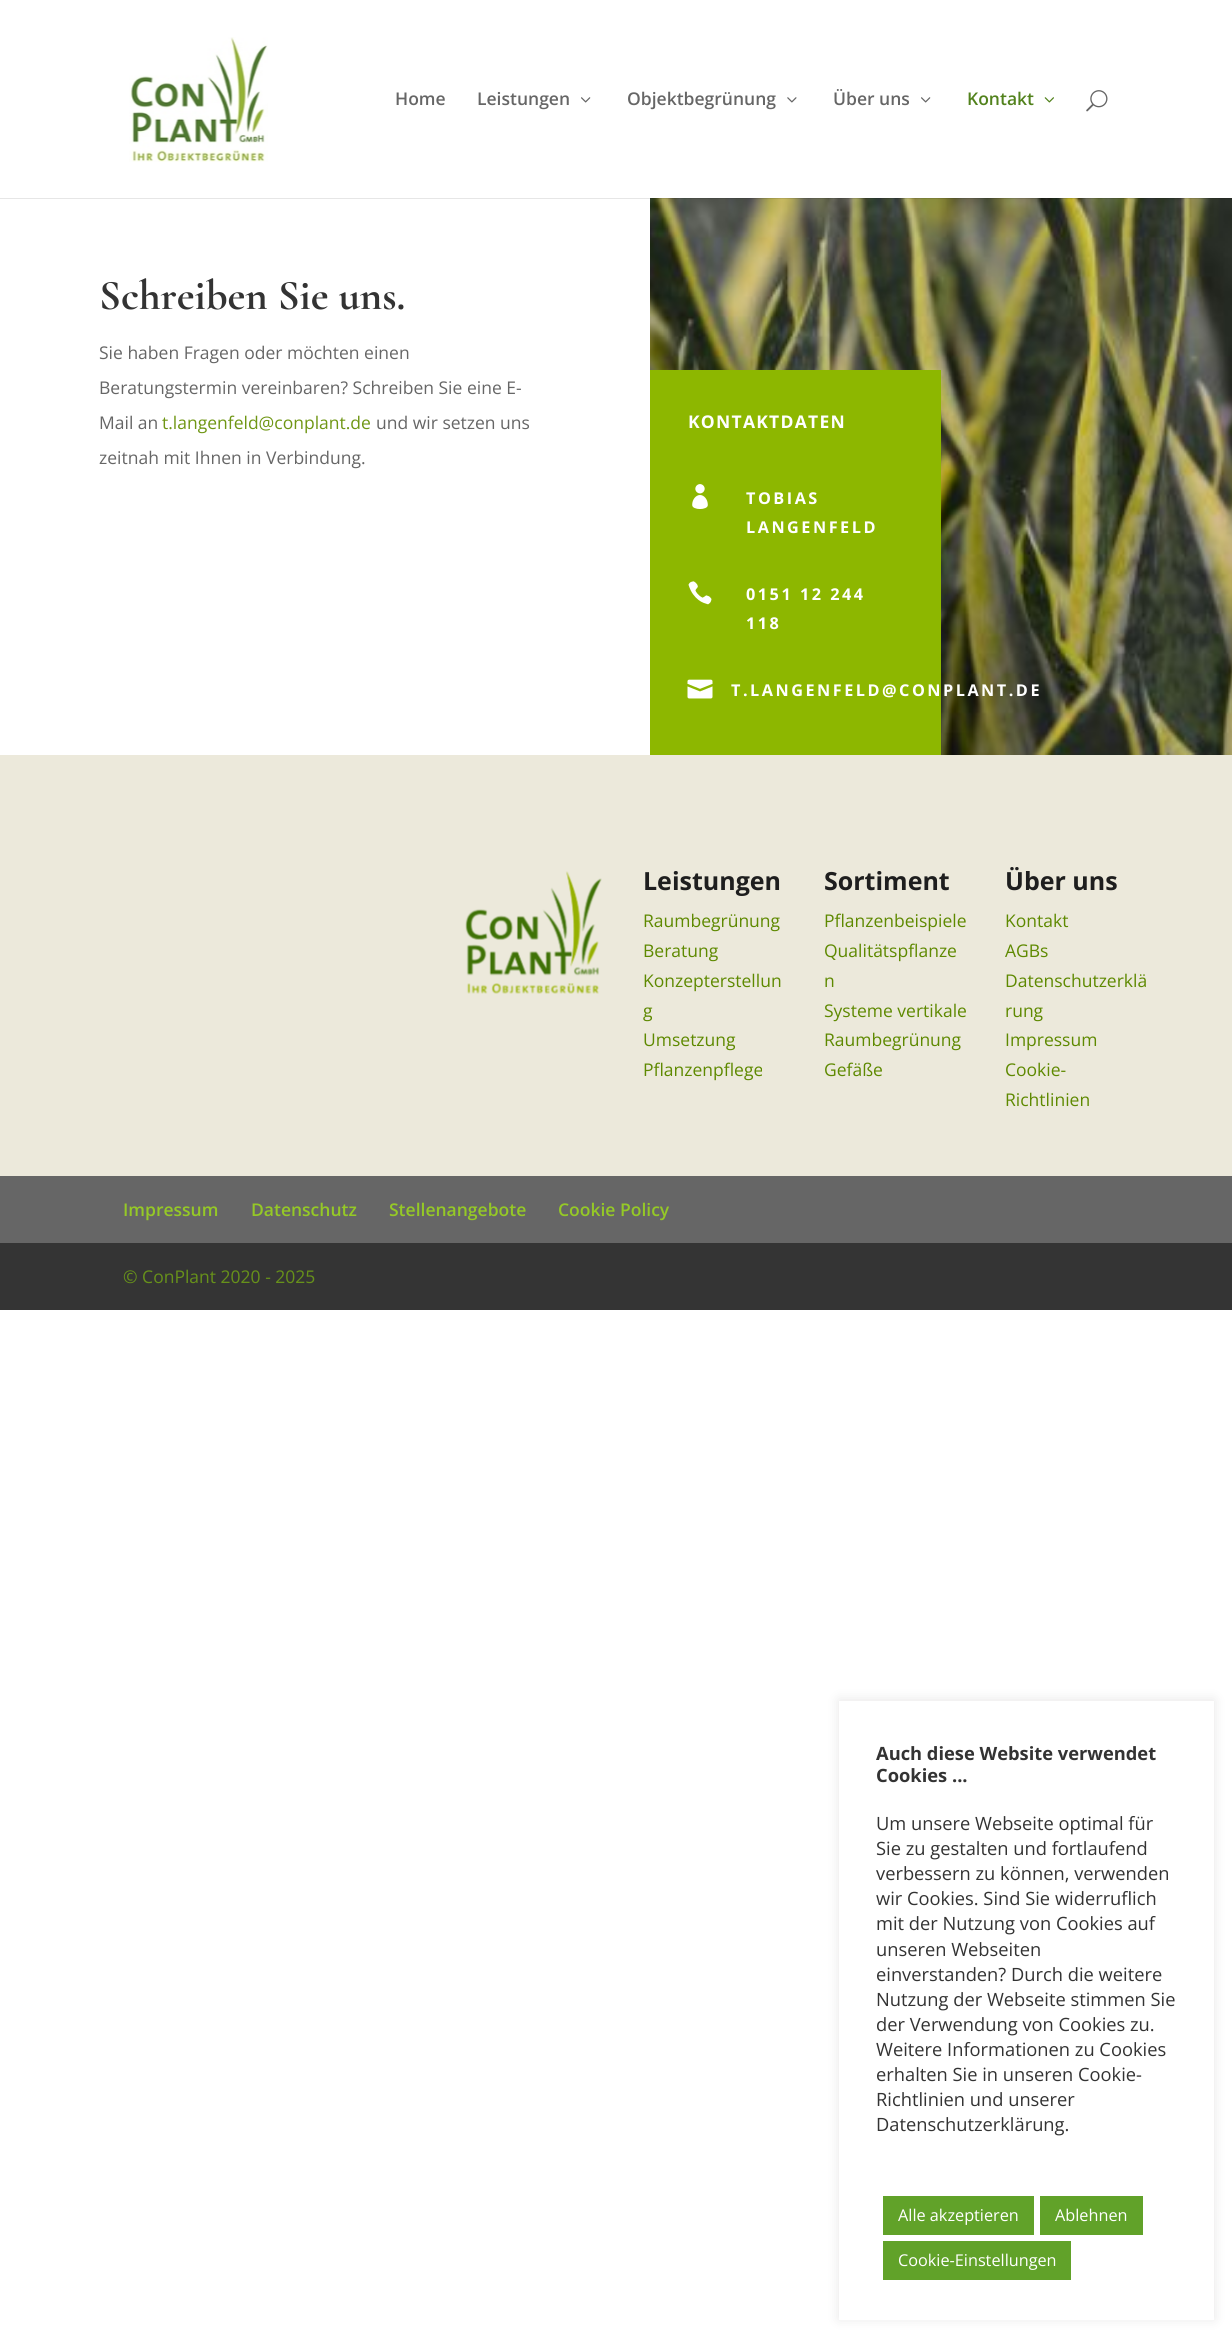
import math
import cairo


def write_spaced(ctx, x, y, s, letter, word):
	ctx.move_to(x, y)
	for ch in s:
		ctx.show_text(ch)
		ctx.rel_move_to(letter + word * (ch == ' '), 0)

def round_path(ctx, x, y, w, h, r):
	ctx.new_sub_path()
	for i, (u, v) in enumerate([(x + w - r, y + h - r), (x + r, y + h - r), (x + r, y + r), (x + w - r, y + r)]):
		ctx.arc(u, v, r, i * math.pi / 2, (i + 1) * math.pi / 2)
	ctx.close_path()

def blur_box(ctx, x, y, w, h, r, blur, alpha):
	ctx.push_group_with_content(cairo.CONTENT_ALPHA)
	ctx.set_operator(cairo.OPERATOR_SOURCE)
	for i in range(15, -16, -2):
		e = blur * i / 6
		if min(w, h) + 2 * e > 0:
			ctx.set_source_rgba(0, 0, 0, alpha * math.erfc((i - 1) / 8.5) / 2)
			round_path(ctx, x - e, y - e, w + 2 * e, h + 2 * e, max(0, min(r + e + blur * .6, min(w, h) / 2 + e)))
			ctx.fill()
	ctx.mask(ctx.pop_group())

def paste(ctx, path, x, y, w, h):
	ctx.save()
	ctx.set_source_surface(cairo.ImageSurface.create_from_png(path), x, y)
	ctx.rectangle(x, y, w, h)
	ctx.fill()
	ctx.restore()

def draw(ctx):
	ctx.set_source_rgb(1, 1, 1)
	ctx.paint()
	paste(ctx, 'media/6.png', 650, 198, 582, 557)
	ctx.set_source_rgba(0, 0, 0, 0.1)
	ctx.new_path()
	ctx.move_to(0, 198)
	ctx.line_to(0, 199)
	ctx.line_to(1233, 199)
	ctx.line_to(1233, 1)
	ctx.line_to(1232, 1)
	ctx.line_to(1232, 198)
	ctx.close_path()
	ctx.fill()
	paste(ctx, 'media/1.png', 129, 37, 139, 125)
	ctx.select_font_face('Open Sans SemiBold')
	ctx.set_font_size(17.5)
	ctx.set_source_rgb(0.4, 0.4, 0.4)
	ctx.move_to(395, 105)
	ctx.show_text('Home')
	ctx.move_to(477, 105)
	ctx.show_text('Leistungen')
	paste(ctx, 'media/2.png', 581, 97, 10, 6)
	ctx.move_to(627, 105)
	ctx.show_text('Objektbegrünung')
	paste(ctx, 'media/3.png', 787, 97, 10, 6)
	ctx.move_to(833, 105)
	ctx.show_text('Über uns')
	paste(ctx, 'media/2.png', 921, 97, 10, 6)
	ctx.set_source_rgb(0.322, 0.51, 0.114)
	ctx.move_to(967, 105)
	ctx.show_text('Kontakt')
	paste(ctx, 'media/4.png', 1044, 97, 10, 6)
	paste(ctx, 'media/5.png', 1086, 90, 22, 22)
	ctx.select_font_face('Cormorant Garamond', cairo.FONT_SLANT_NORMAL, cairo.FONT_WEIGHT_BOLD)
	ctx.set_font_size(42.5)
	ctx.set_source_rgb(0.2, 0.2, 0.2)
	ctx.move_to(99, 309)
	ctx.show_text('Schreiben Sie uns.')
	ctx.select_font_face('Open Sans')
	ctx.set_font_size(17.5)
	ctx.set_source_rgb(0.4, 0.4, 0.4)
	for x, y, s in [
		(99, 359, 'Sie haben Fragen oder möchten einen'),
		(99, 394, 'Beratungstermin vereinbaren? Schreiben Sie eine E-'),
		(99, 429, 'Mail an'),
	]:
		ctx.move_to(x, y)
		ctx.show_text(s)
	ctx.set_source_rgb(0.435, 0.588, 0.082)
	ctx.move_to(162, 429)
	ctx.show_text('t.langenfeld@conplant.de')
	ctx.set_source_rgb(0.4, 0.4, 0.4)
	ctx.move_to(376, 429)
	ctx.show_text('und wir setzen uns')
	ctx.move_to(99, 464)
	ctx.show_text('zeitnah mit Ihnen in Verbindung.')
	ctx.set_source_rgb(0.553, 0.718, 0)
	ctx.rectangle(650, 370, 291, 385)
	ctx.fill()
	ctx.select_font_face('Open Sans', cairo.FONT_SLANT_NORMAL, cairo.FONT_WEIGHT_BOLD)
	ctx.set_source_rgb(1, 1, 1)
	write_spaced(ctx, 688, 428, 'KONTAKTDATEN', 1.25, 0)
	paste(ctx, 'media/7.png', 692, 484, 16, 25)
	ctx.set_font_size(16.25)
	write_spaced(ctx, 746, 504, 'TOBIAS', 2.5, 0)
	write_spaced(ctx, 746, 533, 'LANGENFELD', 2.5, 0)
	paste(ctx, 'media/8.png', 688, 581, 24, 24)
	write_spaced(ctx, 746, 600, '0151 12 244', 2.5, 0)
	write_spaced(ctx, 746, 629, '118', 2.5, 0)
	paste(ctx, 'media/9.png', 687, 679, 26, 20)
	write_spaced(ctx, 731, 696, 'T.LANGENFELD@CONPLANT.DE', 2.5, 0)
	ctx.set_source_rgb(0.922, 0.914, 0.859)
	ctx.rectangle(0, 755, 1232, 421)
	ctx.fill()
	paste(ctx, 'media/10.png', 465, 871, 137, 123)
	ctx.set_font_size(25)
	ctx.set_source_rgb(0.118, 0.118, 0.118)
	ctx.move_to(643, 890)
	ctx.show_text('Leistungen')
	ctx.select_font_face('Open Sans')
	ctx.set_font_size(17.5)
	ctx.set_source_rgb(0.369, 0.537, 0)
	for x, y, s in [
		(643, 927, 'Raumbegrünung'),
		(643, 957, 'Beratung'),
		(643, 987, 'Konzepterstellun'),
		(643, 1017, 'g'),
		(643, 1046, 'Umsetzung'),
		(643, 1076, 'Pflanzenpflege'),
	]:
		ctx.move_to(x, y)
		ctx.show_text(s)
	ctx.select_font_face('Open Sans', cairo.FONT_SLANT_NORMAL, cairo.FONT_WEIGHT_BOLD)
	ctx.set_font_size(25)
	ctx.set_source_rgb(0.118, 0.118, 0.118)
	ctx.move_to(824, 890)
	ctx.show_text('Sortiment')
	ctx.select_font_face('Open Sans')
	ctx.set_font_size(17.5)
	ctx.set_source_rgb(0.369, 0.537, 0)
	for x, y, s in [
		(824, 927, 'Pflanzenbeispiele'),
		(824, 957, 'Qualitätspflanze'),
		(824, 987, 'n'),
		(824, 1017, 'Systeme vertikale'),
		(824, 1046, 'Raumbegrünung'),
		(824, 1076, 'Gefäße'),
	]:
		ctx.move_to(x, y)
		ctx.show_text(s)
	ctx.select_font_face('Open Sans', cairo.FONT_SLANT_NORMAL, cairo.FONT_WEIGHT_BOLD)
	ctx.set_font_size(25)
	ctx.set_source_rgb(0.118, 0.118, 0.118)
	ctx.move_to(1005, 890)
	ctx.show_text('Über uns')
	ctx.select_font_face('Open Sans')
	ctx.set_font_size(17.5)
	ctx.set_source_rgb(0.369, 0.537, 0)
	for x, y, s in [
		(1005, 927, 'Kontakt'),
		(1005, 957, 'AGBs'),
		(1005, 987, 'Datenschutzerklä'),
		(1005, 1017, 'rung'),
		(1005, 1046, 'Impressum'),
		(1005, 1076, 'Cookie-'),
		(1005, 1106, 'Richtlinien'),
	]:
		ctx.move_to(x, y)
		ctx.show_text(s)
	ctx.set_source_rgb(0.4, 0.4, 0.4)
	ctx.rectangle(0, 1176, 1232, 67)
	ctx.fill()
	ctx.select_font_face('Open Sans SemiBold')
	ctx.set_source_rgb(0.584, 0.788, 0.149)
	for x, y, s in [
		(123, 1216, 'Impressum'),
		(251, 1216, 'Datenschutz'),
		(389, 1216, 'Stellenangebote'),
		(558, 1216, 'Cookie Policy'),
	]:
		ctx.move_to(x, y)
		ctx.show_text(s)
	ctx.set_source_rgb(0.204, 0.204, 0.204)
	ctx.rectangle(0, 1243, 1232, 67)
	ctx.fill()
	ctx.select_font_face('Open Sans')
	ctx.set_source_rgb(0.404, 0.569, 0.102)
	ctx.move_to(123, 1283)
	ctx.show_text('© ConPlant 2020 - 2025')
	ctx.set_source_rgb(0.675, 0.671, 0.671)
	blur_box(ctx, 839, 1700, 375, 619, 0, 6, 0.3)
	ctx.set_source_rgb(1, 1, 1)
	ctx.rectangle(839, 1701, 375, 619)
	ctx.fill()
	ctx.select_font_face('Open Sans', cairo.FONT_SLANT_NORMAL, cairo.FONT_WEIGHT_BOLD)
	ctx.set_font_size(18.3)
	ctx.set_source_rgb(0.2, 0.2, 0.2)
	ctx.move_to(876, 1760)
	ctx.show_text('Auch diese Website verwendet')
	ctx.move_to(876, 1782)
	ctx.show_text('Cookies ...')
	ctx.select_font_face('Open Sans')
	for x, y, s in [
		(876, 1830, 'Um unsere Webseite optimal für'),
		(876, 1855, 'Sie zu gestalten und fortlaufend'),
		(876, 1880, 'verbessern zu können, verwenden'),
		(876, 1905, 'wir Cookies. Sind Sie widerruflich'),
		(876, 1930, 'mit der Nutzung von Cookies auf'),
		(876, 1956, 'unseren Webseiten'),
		(876, 1981, 'einverstanden? Durch die weitere'),
		(876, 2006, 'Nutzung der Webseite stimmen Sie'),
		(876, 2031, 'der Verwendung von Cookies zu.'),
		(876, 2056, 'Weitere Informationen zu Cookies'),
		(876, 2081, 'erhalten Sie in unseren Cookie-'),
		(876, 2106, 'Richtlinien und unserer'),
		(876, 2131, 'Datenschutzerklärung.'),
	]:
		ctx.move_to(x, y)
		ctx.show_text(s)
	ctx.set_source_rgb(0.38, 0.635, 0.161)
	ctx.rectangle(883, 2196, 151, 39)
	ctx.fill()
	ctx.set_font_size(16.25)
	ctx.set_source_rgb(1, 1, 1)
	ctx.move_to(898, 2221)
	ctx.show_text('Alle akzeptieren')
	ctx.set_source_rgb(0.38, 0.635, 0.161)
	ctx.rectangle(1040, 2196, 103, 39)
	ctx.fill()
	ctx.set_source_rgb(1, 1, 1)
	ctx.move_to(1055, 2221)
	ctx.show_text('Ablehnen')
	ctx.set_source_rgb(0.38, 0.635, 0.161)
	ctx.rectangle(883, 2241, 188, 39)
	ctx.fill()
	ctx.set_source_rgb(1, 1, 1)
	ctx.move_to(898, 2266)
	ctx.show_text('Cookie-Einstellungen')


surface = cairo.ImageSurface(cairo.FORMAT_RGB24, 1232, 2338)
ctx = cairo.Context(surface)
options = cairo.FontOptions()
options.set_hint_metrics(cairo.HINT_METRICS_OFF)
options.set_hint_style(cairo.HINT_STYLE_NONE)
ctx.set_font_options(options)
ctx.set_miter_limit(4)
draw(ctx)
surface.write_to_png('image.png')
